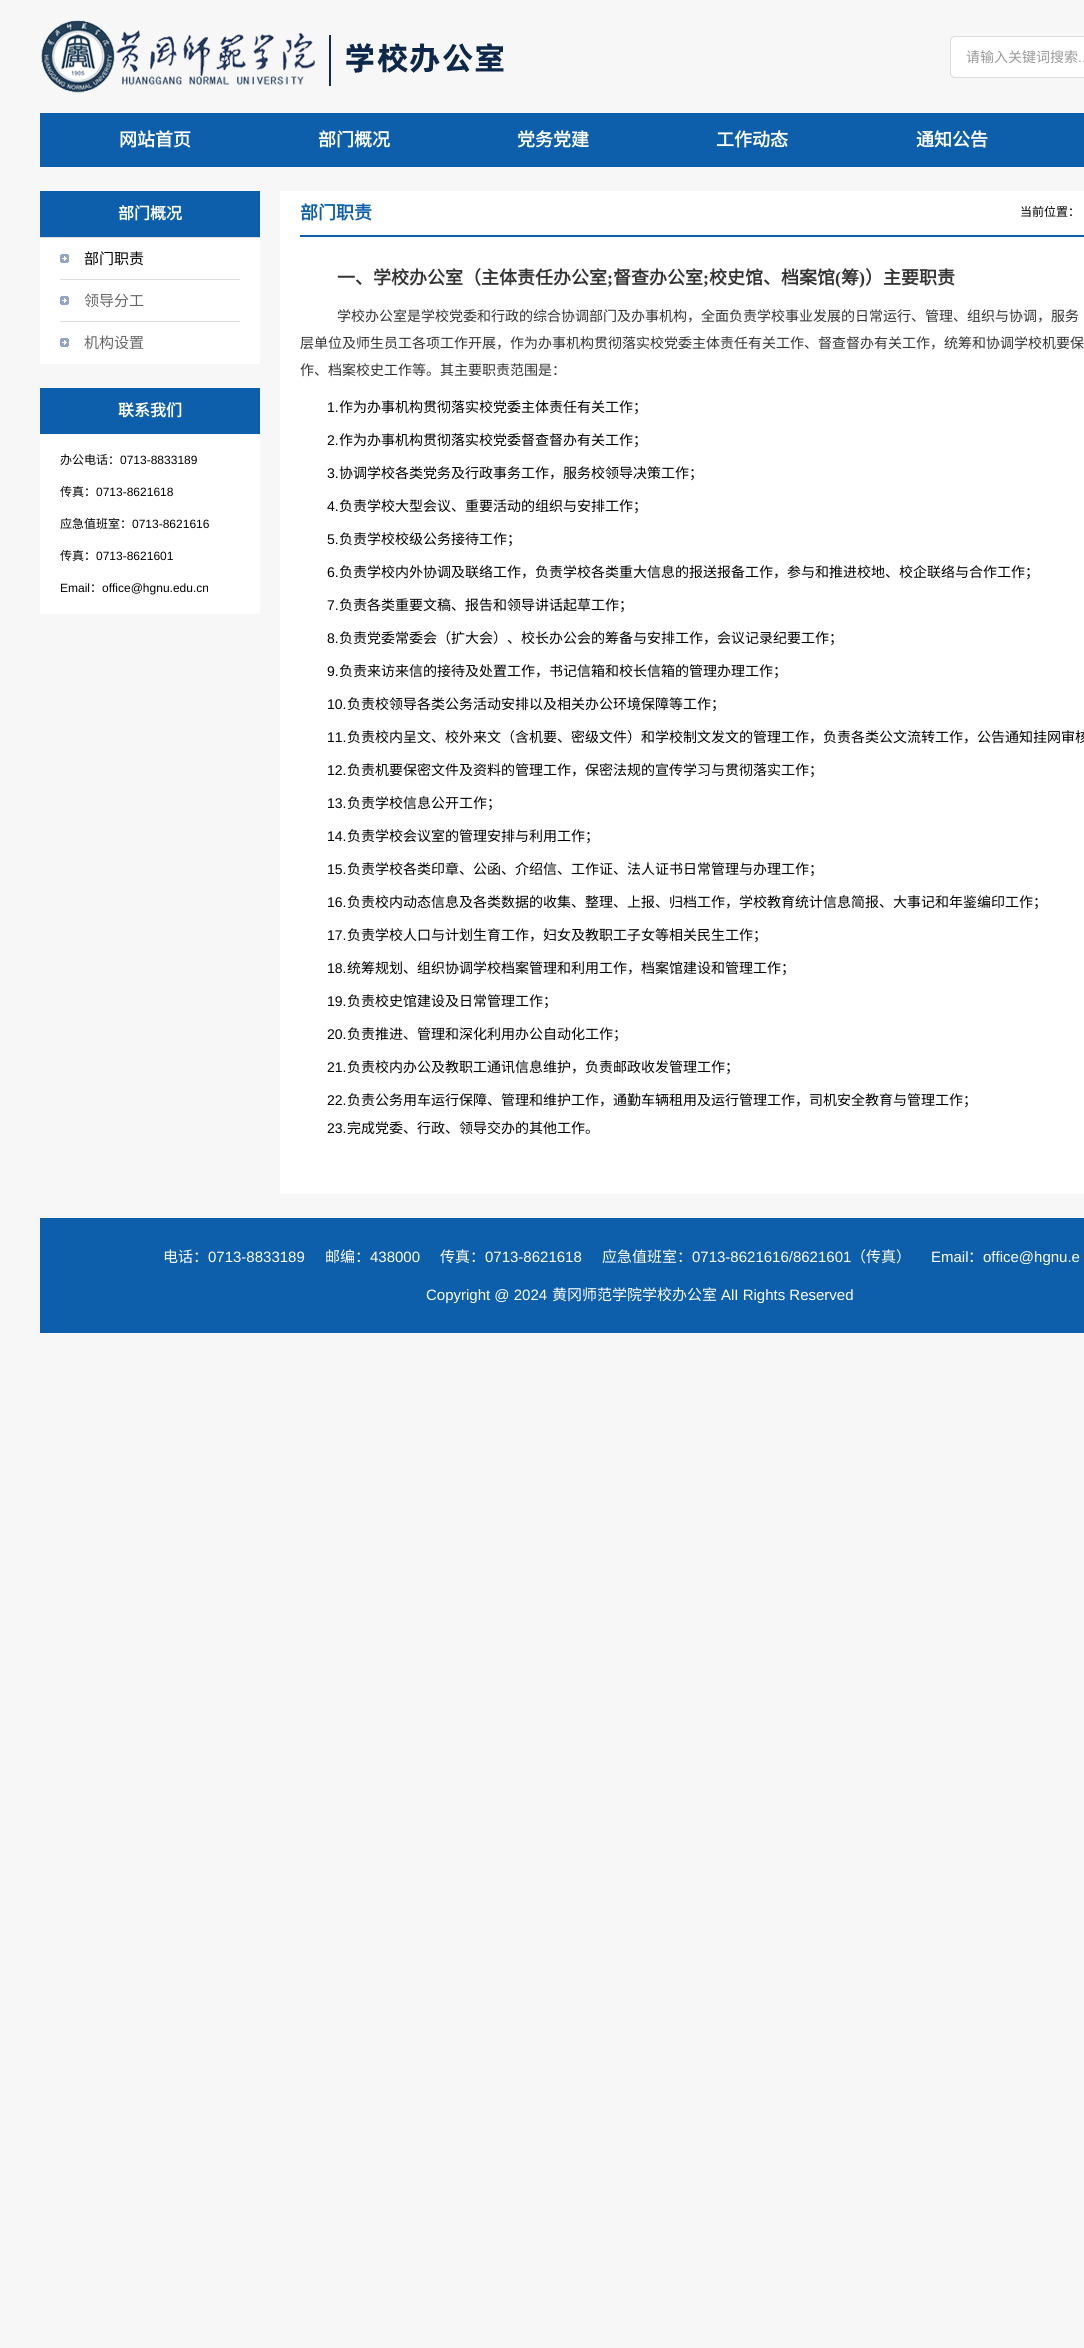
import math
import cairo


def paste(ctx, path, x, y, w, h):
	ctx.save()
	ctx.set_source_surface(cairo.ImageSurface.create_from_png(path), x, y)
	ctx.rectangle(x, y, w, h)
	ctx.fill()
	ctx.restore()

def draw(ctx):
	ctx.set_source_rgb(0.965, 0.965, 0.965)
	ctx.paint()
	paste(ctx, 'media/1.png', 41, 20, 463, 73)
	ctx.set_source_rgb(1, 1, 1)
	ctx.new_path()
	ctx.move_to(955, 36)
	ctx.line_to(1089, 36)
	ctx.line_to(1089, 78)
	ctx.line_to(955, 78)
	ctx.curve_to(952, 78, 950, 76, 950, 73)
	ctx.line_to(950, 41)
	ctx.curve_to(950, 38, 952, 36, 955, 36)
	ctx.close_path()
	ctx.fill()
	ctx.set_source_rgb(0.867, 0.867, 0.867)
	ctx.set_fill_rule(cairo.FILL_RULE_EVEN_ODD)
	ctx.new_path()
	ctx.move_to(955, 36)
	ctx.line_to(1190, 36)
	ctx.line_to(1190, 78)
	ctx.line_to(955, 78)
	ctx.curve_to(952, 78, 950, 76, 950, 73)
	ctx.line_to(950, 41)
	ctx.curve_to(950, 38, 952, 36, 955, 36)
	ctx.close_path()
	ctx.move_to(955, 37)
	ctx.line_to(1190, 37)
	ctx.line_to(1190, 77)
	ctx.line_to(955, 77)
	ctx.curve_to(953, 77, 951, 75, 951, 73)
	ctx.line_to(951, 41)
	ctx.curve_to(951, 39, 953, 37, 955, 37)
	ctx.close_path()
	ctx.fill()
	ctx.select_font_face('Noto Sans CJK SC')
	ctx.set_font_size(14)
	ctx.set_source_rgb(0.6, 0.6, 0.6)
	ctx.move_to(966, 62)
	ctx.show_text('请输入关键词搜索')
	ctx.select_font_face('Liberation Sans')
	ctx.move_to(1078, 62)
	ctx.show_text('..')
	ctx.set_source_rgb(0.051, 0.373, 0.675)
	ctx.rectangle(40, 113, 1044, 54)
	ctx.fill()
	ctx.select_font_face('Noto Sans CJK SC', cairo.FONT_SLANT_NORMAL, cairo.FONT_WEIGHT_BOLD)
	ctx.set_font_size(18)
	ctx.set_source_rgb(1, 1, 1)
	for x, y, s in [
		(119, 146, '网站首页'),
		(318, 146, '部门概况'),
		(517, 146, '党务党建'),
		(716, 146, '工作动态'),
		(916, 146, '通知公告'),
	]:
		ctx.move_to(x, y)
		ctx.show_text(s)
	ctx.set_source_rgb(0.051, 0.373, 0.675)
	ctx.rectangle(40, 191, 220, 46)
	ctx.fill()
	ctx.set_font_size(16)
	ctx.set_source_rgb(1, 1, 1)
	ctx.move_to(118, 219)
	ctx.show_text('部门概况')
	ctx.rectangle(40, 238, 220, 126)
	ctx.fill()
	ctx.set_source_rgb(0.867, 0.867, 0.867)
	ctx.rectangle(40, 237, 220, 1)
	ctx.fill()
	paste(ctx, 'media/2.png', 60, 254, 9, 9)
	ctx.rectangle(60, 279, 180, 1)
	ctx.fill()
	ctx.select_font_face('Noto Sans CJK SC')
	ctx.set_font_size(15)
	ctx.set_source_rgb(0, 0, 0)
	ctx.move_to(84, 264)
	ctx.show_text('部门职责')
	paste(ctx, 'media/2.png', 60, 296, 9, 9)
	ctx.set_source_rgb(0.867, 0.867, 0.867)
	ctx.rectangle(60, 321, 180, 1)
	ctx.fill()
	ctx.set_source_rgb(0.4, 0.4, 0.4)
	ctx.move_to(84, 306)
	ctx.show_text('领导分工')
	paste(ctx, 'media/2.png', 60, 338, 9, 9)
	ctx.move_to(84, 348)
	ctx.show_text('机构设置')
	ctx.set_source_rgb(0.051, 0.373, 0.675)
	ctx.rectangle(40, 388, 220, 46)
	ctx.fill()
	ctx.select_font_face('Noto Sans CJK SC', cairo.FONT_SLANT_NORMAL, cairo.FONT_WEIGHT_BOLD)
	ctx.set_font_size(16)
	ctx.set_source_rgb(1, 1, 1)
	ctx.move_to(118, 416)
	ctx.show_text('联系我们')
	ctx.rectangle(40, 434, 220, 180)
	ctx.fill()
	ctx.select_font_face('Noto Sans CJK SC')
	ctx.set_font_size(12)
	ctx.set_source_rgb(0, 0, 0)
	ctx.move_to(60, 464)
	ctx.show_text('办公电话：')
	ctx.select_font_face('Liberation Sans')
	ctx.move_to(120, 464)
	ctx.show_text('0713-8833189')
	ctx.select_font_face('Noto Sans CJK SC')
	ctx.move_to(60, 496)
	ctx.show_text('传真：')
	ctx.select_font_face('Liberation Sans')
	ctx.move_to(96, 496)
	ctx.show_text('0713-8621618')
	ctx.select_font_face('Noto Sans CJK SC')
	ctx.move_to(60, 528)
	ctx.show_text('应急值班室：')
	ctx.select_font_face('Liberation Sans')
	ctx.move_to(132, 528)
	ctx.show_text('0713-8621616')
	ctx.select_font_face('Noto Sans CJK SC')
	ctx.move_to(60, 560)
	ctx.show_text('传真：')
	ctx.select_font_face('Liberation Sans')
	ctx.move_to(96, 560)
	ctx.show_text('0713-8621601')
	ctx.move_to(60, 592)
	ctx.show_text('Email')
	ctx.select_font_face('Noto Sans CJK SC')
	ctx.move_to(90, 592)
	ctx.show_text('：')
	ctx.select_font_face('Liberation Sans')
	ctx.move_to(102, 592)
	ctx.show_text('office@hgnu.edu.cn')
	ctx.set_source_rgb(1, 1, 1)
	ctx.rectangle(280, 191, 804, 1003)
	ctx.fill()
	ctx.set_source_rgb(0.051, 0.373, 0.675)
	ctx.rectangle(300, 235, 784, 2)
	ctx.fill()
	ctx.select_font_face('Noto Sans CJK SC', cairo.FONT_SLANT_NORMAL, cairo.FONT_WEIGHT_BOLD)
	ctx.set_font_size(18)
	ctx.move_to(300, 219)
	ctx.show_text('部门职责')
	ctx.select_font_face('Noto Sans CJK SC')
	ctx.set_font_size(12)
	ctx.set_source_rgb(0, 0, 0)
	ctx.move_to(1020, 216)
	ctx.show_text('当前位置：')
	ctx.select_font_face('Noto Sans CJK SC', cairo.FONT_SLANT_NORMAL, cairo.FONT_WEIGHT_BOLD)
	ctx.set_font_size(18)
	ctx.set_source_rgb(0.2, 0.2, 0.2)
	ctx.move_to(337, 284)
	ctx.show_text('一、学校办公室（主体责任办公室')
	ctx.select_font_face('Liberation Serif', cairo.FONT_SLANT_NORMAL, cairo.FONT_WEIGHT_BOLD)
	ctx.move_to(607, 284)
	ctx.show_text(';')
	ctx.select_font_face('Noto Sans CJK SC', cairo.FONT_SLANT_NORMAL, cairo.FONT_WEIGHT_BOLD)
	ctx.move_to(613, 284)
	ctx.show_text('督查办公室')
	ctx.select_font_face('Liberation Serif', cairo.FONT_SLANT_NORMAL, cairo.FONT_WEIGHT_BOLD)
	ctx.move_to(703, 284)
	ctx.show_text(';')
	ctx.select_font_face('Noto Sans CJK SC', cairo.FONT_SLANT_NORMAL, cairo.FONT_WEIGHT_BOLD)
	ctx.move_to(709, 284)
	ctx.show_text('校史馆、档案馆')
	ctx.select_font_face('Liberation Serif', cairo.FONT_SLANT_NORMAL, cairo.FONT_WEIGHT_BOLD)
	ctx.move_to(835, 284)
	ctx.show_text('(')
	ctx.select_font_face('Noto Sans CJK SC', cairo.FONT_SLANT_NORMAL, cairo.FONT_WEIGHT_BOLD)
	ctx.move_to(841, 284)
	ctx.show_text('筹')
	ctx.select_font_face('Liberation Serif', cairo.FONT_SLANT_NORMAL, cairo.FONT_WEIGHT_BOLD)
	ctx.move_to(859, 284)
	ctx.show_text(')')
	ctx.select_font_face('Noto Sans CJK SC', cairo.FONT_SLANT_NORMAL, cairo.FONT_WEIGHT_BOLD)
	ctx.move_to(865, 284)
	ctx.show_text('）主要职责')
	ctx.select_font_face('Noto Sans CJK SC')
	ctx.set_font_size(14)
	for x, y, s in [
		(337, 321, '学校办公室是学校党委和行政的综合协调部门及办事机构，全面负责学校事业发展的日常运行、管理、组织与协调，服务'),
		(300, 348, '层单位及师生员工各项工作开展，作为办事机构贯彻落实校党委主体责任有关工作、督查督办有关工作，统筹和协调学校机要保'),
		(300, 375, '作、档案校史工作等。其主要职责范围是：'),
	]:
		ctx.move_to(x, y)
		ctx.show_text(s)
	ctx.select_font_face('Liberation Sans')
	ctx.set_source_rgb(0, 0, 0)
	ctx.move_to(327, 412)
	ctx.show_text('1.')
	ctx.select_font_face('Noto Sans CJK SC')
	ctx.move_to(339, 412)
	ctx.show_text('作为办事机构贯彻落实校党委主体责任有关工作；')
	ctx.select_font_face('Liberation Sans')
	ctx.move_to(327, 445)
	ctx.show_text('2.')
	ctx.select_font_face('Noto Sans CJK SC')
	ctx.move_to(339, 445)
	ctx.show_text('作为办事机构贯彻落实校党委督查督办有关工作；')
	ctx.select_font_face('Liberation Sans')
	ctx.move_to(327, 478)
	ctx.show_text('3.')
	ctx.select_font_face('Noto Sans CJK SC')
	ctx.move_to(339, 478)
	ctx.show_text('协调学校各类党务及行政事务工作，服务校领导决策工作；')
	ctx.select_font_face('Liberation Sans')
	ctx.move_to(327, 511)
	ctx.show_text('4.')
	ctx.select_font_face('Noto Sans CJK SC')
	ctx.move_to(339, 511)
	ctx.show_text('负责学校大型会议、重要活动的组织与安排工作；')
	ctx.select_font_face('Liberation Sans')
	ctx.move_to(327, 544)
	ctx.show_text('5.')
	ctx.select_font_face('Noto Sans CJK SC')
	ctx.move_to(339, 544)
	ctx.show_text('负责学校校级公务接待工作；')
	ctx.select_font_face('Liberation Sans')
	ctx.move_to(327, 577)
	ctx.show_text('6.')
	ctx.select_font_face('Noto Sans CJK SC')
	ctx.move_to(339, 577)
	ctx.show_text('负责学校内外协调及联络工作，负责学校各类重大信息的报送报备工作，参与和推进校地、校企联络与合作工作；')
	ctx.select_font_face('Liberation Sans')
	ctx.move_to(327, 610)
	ctx.show_text('7.')
	ctx.select_font_face('Noto Sans CJK SC')
	ctx.move_to(339, 610)
	ctx.show_text('负责各类重要文稿、报告和领导讲话起草工作；')
	ctx.select_font_face('Liberation Sans')
	ctx.move_to(327, 643)
	ctx.show_text('8.')
	ctx.select_font_face('Noto Sans CJK SC')
	ctx.move_to(339, 643)
	ctx.show_text('负责党委常委会（扩大会）、校长办公会的筹备与安排工作，会议记录纪要工作；')
	ctx.select_font_face('Liberation Sans')
	ctx.move_to(327, 676)
	ctx.show_text('9.')
	ctx.select_font_face('Noto Sans CJK SC')
	ctx.move_to(339, 676)
	ctx.show_text('负责来访来信的接待及处置工作，书记信箱和校长信箱的管理办理工作；')
	ctx.select_font_face('Liberation Sans')
	ctx.move_to(327, 709)
	ctx.show_text('10.')
	ctx.select_font_face('Noto Sans CJK SC')
	ctx.move_to(347, 709)
	ctx.show_text('负责校领导各类公务活动安排以及相关办公环境保障等工作；')
	ctx.select_font_face('Liberation Sans')
	ctx.move_to(327, 742)
	ctx.show_text('11.')
	ctx.select_font_face('Noto Sans CJK SC')
	ctx.move_to(347, 742)
	ctx.show_text('负责校内呈文、校外来文（含机要、密级文件）和学校制文发文的管理工作，负责各类公文流转工作，公告通知挂网审核')
	ctx.select_font_face('Liberation Sans')
	ctx.move_to(327, 775)
	ctx.show_text('12.')
	ctx.select_font_face('Noto Sans CJK SC')
	ctx.move_to(347, 775)
	ctx.show_text('负责机要保密文件及资料的管理工作，保密法规的宣传学习与贯彻落实工作；')
	ctx.select_font_face('Liberation Sans')
	ctx.move_to(327, 808)
	ctx.show_text('13.')
	ctx.select_font_face('Noto Sans CJK SC')
	ctx.move_to(347, 808)
	ctx.show_text('负责学校信息公开工作；')
	ctx.select_font_face('Liberation Sans')
	ctx.move_to(327, 841)
	ctx.show_text('14.')
	ctx.select_font_face('Noto Sans CJK SC')
	ctx.move_to(347, 841)
	ctx.show_text('负责学校会议室的管理安排与利用工作；')
	ctx.select_font_face('Liberation Sans')
	ctx.move_to(327, 874)
	ctx.show_text('15.')
	ctx.select_font_face('Noto Sans CJK SC')
	ctx.move_to(347, 874)
	ctx.show_text('负责学校各类印章、公函、介绍信、工作证、法人证书日常管理与办理工作；')
	ctx.select_font_face('Liberation Sans')
	ctx.move_to(327, 907)
	ctx.show_text('16.')
	ctx.select_font_face('Noto Sans CJK SC')
	ctx.move_to(347, 907)
	ctx.show_text('负责校内动态信息及各类数据的收集、整理、上报、归档工作，学校教育统计信息简报、大事记和年鉴编印工作；')
	ctx.select_font_face('Liberation Sans')
	ctx.move_to(327, 940)
	ctx.show_text('17.')
	ctx.select_font_face('Noto Sans CJK SC')
	ctx.move_to(347, 940)
	ctx.show_text('负责学校人口与计划生育工作，妇女及教职工子女等相关民生工作；')
	ctx.select_font_face('Liberation Sans')
	ctx.move_to(327, 973)
	ctx.show_text('18.')
	ctx.select_font_face('Noto Sans CJK SC')
	ctx.move_to(347, 973)
	ctx.show_text('统筹规划、组织协调学校档案管理和利用工作，档案馆建设和管理工作；')
	ctx.select_font_face('Liberation Sans')
	ctx.move_to(327, 1006)
	ctx.show_text('19.')
	ctx.select_font_face('Noto Sans CJK SC')
	ctx.move_to(347, 1006)
	ctx.show_text('负责校史馆建设及日常管理工作；')
	ctx.select_font_face('Liberation Sans')
	ctx.move_to(327, 1039)
	ctx.show_text('20.')
	ctx.select_font_face('Noto Sans CJK SC')
	ctx.move_to(347, 1039)
	ctx.show_text('负责推进、管理和深化利用办公自动化工作；')
	ctx.select_font_face('Liberation Sans')
	ctx.move_to(327, 1072)
	ctx.show_text('21.')
	ctx.select_font_face('Noto Sans CJK SC')
	ctx.move_to(347, 1072)
	ctx.show_text('负责校内办公及教职工通讯信息维护，负责邮政收发管理工作；')
	ctx.select_font_face('Liberation Sans')
	ctx.move_to(327, 1105)
	ctx.show_text('22.')
	ctx.select_font_face('Noto Sans CJK SC')
	ctx.move_to(347, 1105)
	ctx.show_text('负责公务用车运行保障、管理和维护工作，通勤车辆租用及运行管理工作，司机安全教育与管理工作；')
	ctx.select_font_face('Liberation Sans')
	ctx.move_to(327, 1133)
	ctx.show_text('23.')
	ctx.select_font_face('Noto Sans CJK SC')
	ctx.move_to(347, 1133)
	ctx.show_text('完成党委、行政、领导交办的其他工作。')
	ctx.set_source_rgb(0.051, 0.373, 0.675)
	ctx.rectangle(40, 1218, 1044, 115)
	ctx.fill()
	ctx.set_font_size(15)
	ctx.set_source_rgb(1, 1, 1)
	ctx.move_to(163, 1262)
	ctx.show_text('电话：')
	ctx.select_font_face('Liberation Sans')
	ctx.move_to(208, 1262)
	ctx.show_text('0713-8833189')
	ctx.select_font_face('Noto Sans CJK SC')
	ctx.move_to(325, 1262)
	ctx.show_text('邮编：')
	ctx.select_font_face('Liberation Sans')
	ctx.move_to(370, 1262)
	ctx.show_text('438000')
	ctx.select_font_face('Noto Sans CJK SC')
	ctx.move_to(440, 1262)
	ctx.show_text('传真：')
	ctx.select_font_face('Liberation Sans')
	ctx.move_to(485, 1262)
	ctx.show_text('0713-8621618')
	ctx.select_font_face('Noto Sans CJK SC')
	ctx.move_to(602, 1262)
	ctx.show_text('应急值班室：')
	ctx.select_font_face('Liberation Sans')
	ctx.move_to(692, 1262)
	ctx.show_text('0713-8621616/8621601')
	ctx.select_font_face('Noto Sans CJK SC')
	ctx.move_to(851, 1262)
	ctx.show_text('（传真）')
	ctx.select_font_face('Liberation Sans')
	ctx.move_to(931, 1262)
	ctx.show_text('Email')
	ctx.select_font_face('Noto Sans CJK SC')
	ctx.move_to(968, 1262)
	ctx.show_text('：')
	ctx.select_font_face('Liberation Sans')
	ctx.move_to(983, 1262)
	ctx.show_text('office@hgnu.e')
	ctx.move_to(426, 1300)
	ctx.show_text('Copyright @ 2024')
	ctx.select_font_face('Noto Sans CJK SC')
	ctx.move_to(552, 1300)
	ctx.show_text('黄冈师范学院学校办公室')
	ctx.select_font_face('Liberation Sans')
	ctx.move_to(721, 1300)
	ctx.show_text('AlI Rights Reserved')


surface = cairo.ImageSurface(cairo.FORMAT_RGB24, 1084, 2348)
ctx = cairo.Context(surface)
options = cairo.FontOptions()
options.set_hint_metrics(cairo.HINT_METRICS_OFF)
options.set_hint_style(cairo.HINT_STYLE_NONE)
ctx.set_font_options(options)
ctx.set_miter_limit(4)
draw(ctx)
surface.write_to_png('image.png')
